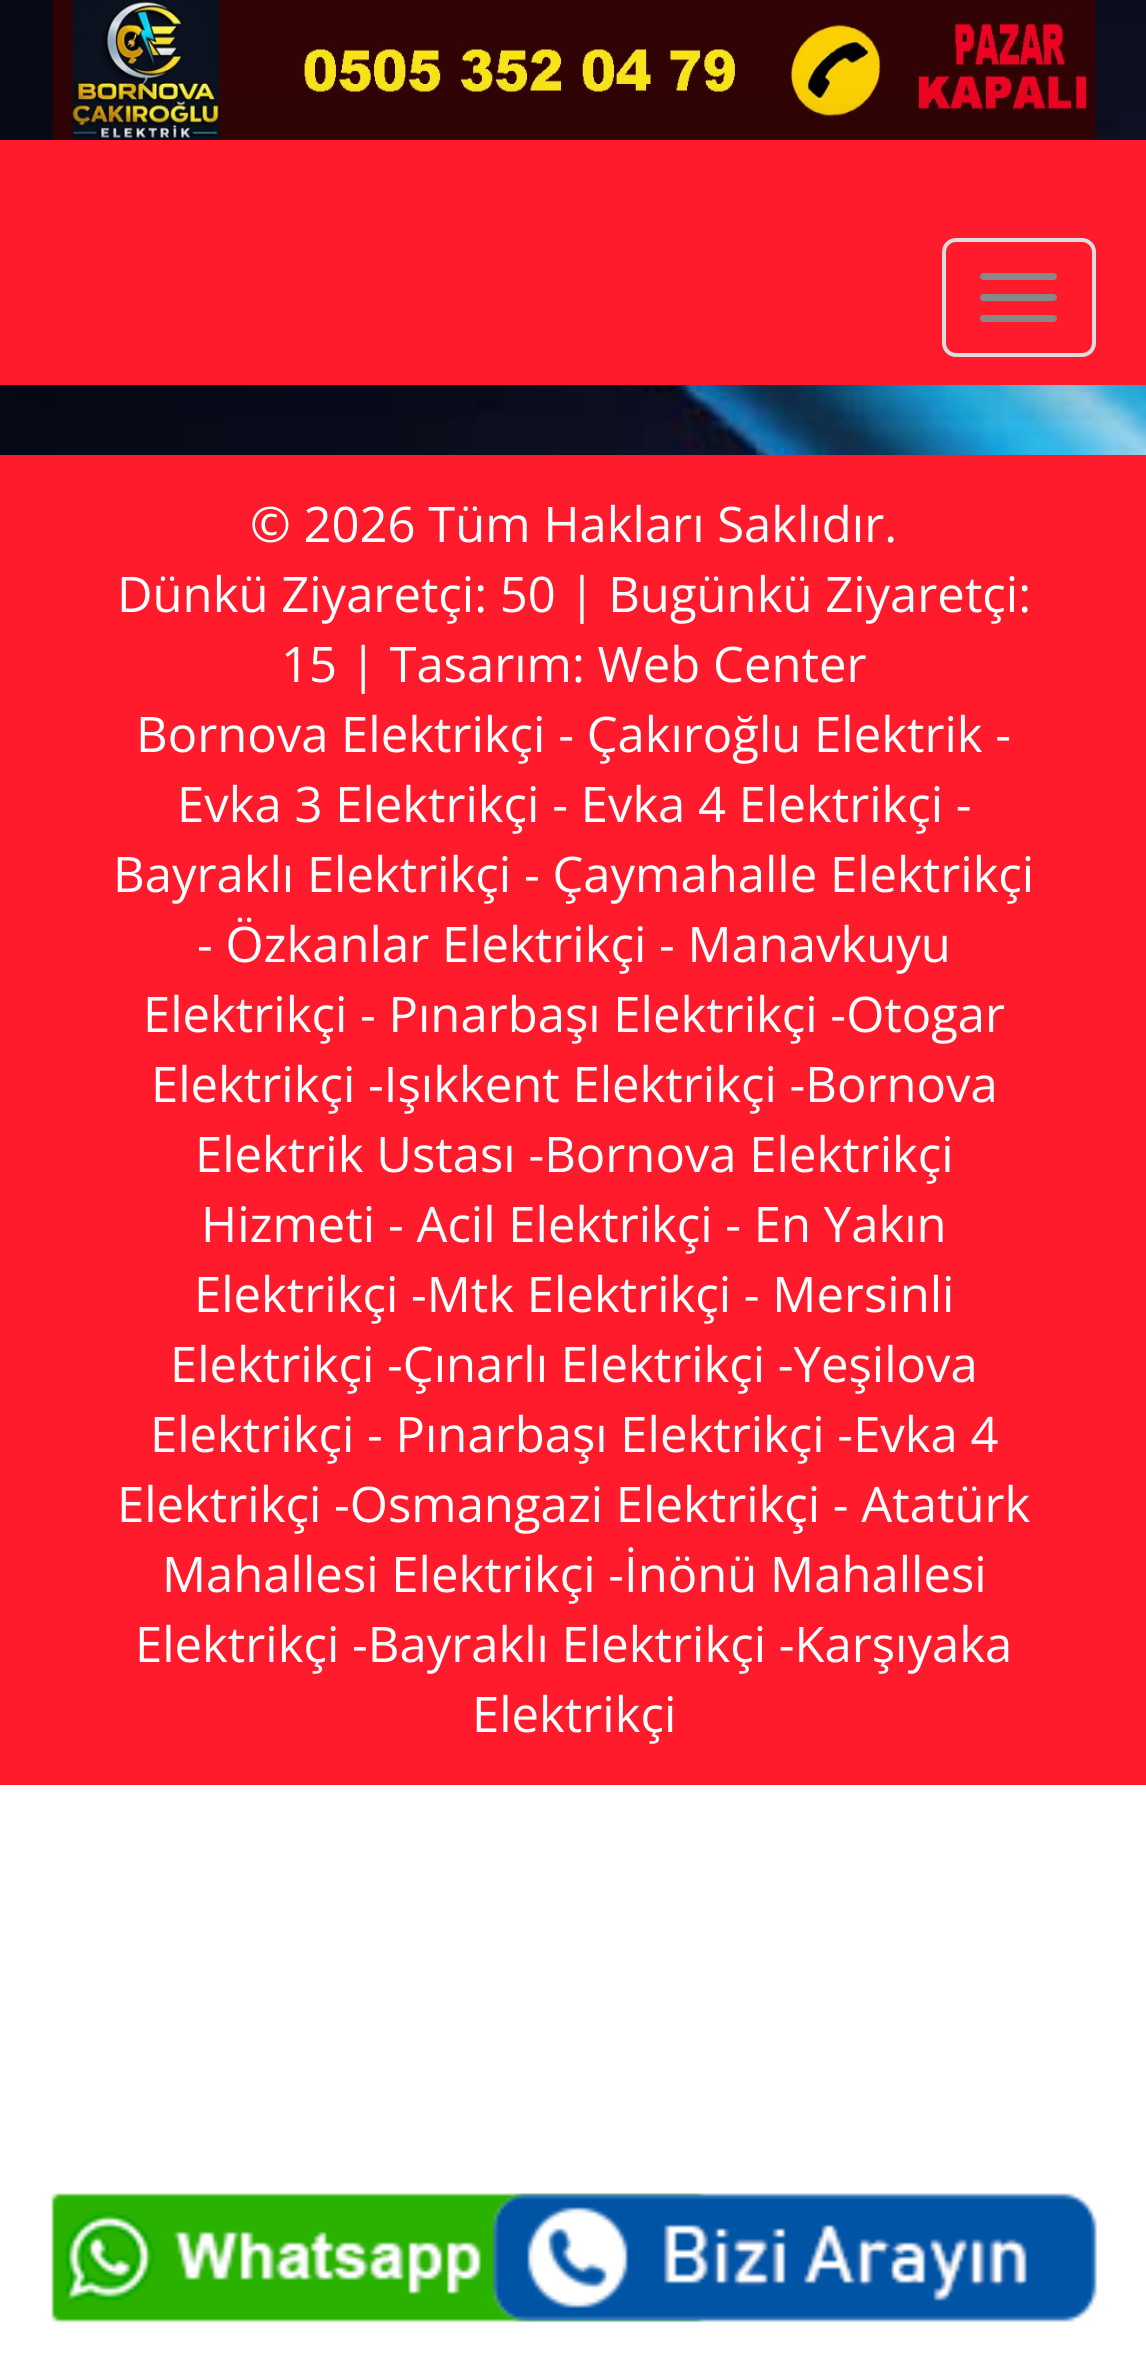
import math
import cairo


def round_path(ctx, x, y, w, h, r):
	ctx.new_sub_path()
	for i, (u, v) in enumerate([(x + w - r, y + h - r), (x + r, y + h - r), (x + r, y + r), (x + w - r, y + r)]):
		ctx.arc(u, v, r, i * math.pi / 2, (i + 1) * math.pi / 2)
	ctx.close_path()

def blur_box(ctx, x, y, w, h, r, blur, alpha):
	ctx.push_group_with_content(cairo.CONTENT_ALPHA)
	ctx.set_operator(cairo.OPERATOR_SOURCE)
	for i in range(15, -16, -2):
		e = blur * i / 6
		if min(w, h) + 2 * e > 0:
			ctx.set_source_rgba(0, 0, 0, alpha * math.erfc((i - 1) / 8.5) / 2)
			round_path(ctx, x - e, y - e, w + 2 * e, h + 2 * e, max(0, min(r + e + blur * .6, min(w, h) / 2 + e)))
			ctx.fill()
	ctx.mask(ctx.pop_group())

def paste(ctx, path, x, y, w, h):
	ctx.save()
	ctx.set_source_surface(cairo.ImageSurface.create_from_png(path), x, y)
	ctx.rectangle(x, y, w, h)
	ctx.fill()
	ctx.restore()

def draw(ctx):
	ctx.set_source_rgb(1, 1, 1)
	ctx.paint()
	paste(ctx, 'media/1.png', 0, 0, 1146, 455)
	paste(ctx, 'media/2.png', 52, 0, 1044, 140)
	ctx.set_source_rgb(1, 0.106, 0.169)
	ctx.rectangle(0, 455, 1146, 1330)
	ctx.fill()
	ctx.set_source_rgb(0, 0, 0)
	blur_box(ctx, 11, 154, 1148, 245, 0, 44, 0.15)
	ctx.set_source_rgb(1, 0.106, 0.169)
	ctx.rectangle(0, 140, 1146, 245)
	ctx.fill()
	round_path(ctx, 944, 240, 150, 115, 12)
	ctx.set_source_rgb(0.867, 0.867, 0.867)
	ctx.set_line_width(4)
	ctx.stroke()
	ctx.set_source_rgb(0.533, 0.533, 0.533)
	round_path(ctx, 980, 273, 77, 7, 3.5)
	ctx.fill()
	round_path(ctx, 980, 294, 77, 7, 3.5)
	ctx.fill()
	round_path(ctx, 980, 315, 77, 7, 3.5)
	ctx.fill()
	ctx.select_font_face('Open Sans')
	ctx.set_font_size(49)
	ctx.set_source_rgb(1, 1, 1)
	for x, y, s in [
		(250, 542, '© 2026 Tüm Hakları Saklıdır.'),
		(117, 612, 'Dünkü Ziyaretçi: 50 | Bugünkü Ziyaretçi:'),
		(281, 682, '15 | Tasarım: Web Center'),
		(136, 752, 'Bornova Elektrikçi - Çakıroğlu Elektrik -'),
		(177, 822, 'Evka 3 Elektrikçi - Evka 4 Elektrikçi -'),
		(113, 892, 'Bayraklı Elektrikçi - Çaymahalle Elektrikçi'),
		(197, 962, '- Özkanlar Elektrikçi - Manavkuyu'),
		(143, 1032, 'Elektrikçi - Pınarbaşı Elektrikçi -Otogar'),
		(151, 1102, 'Elektrikçi -Işıkkent Elektrikçi -Bornova'),
		(195, 1172, 'Elektrik Ustası -Bornova Elektrikçi'),
		(201, 1242, 'Hizmeti - Acil Elektrikçi - En Yakın'),
		(194, 1312, 'Elektrikçi -Mtk Elektrikçi - Mersinli'),
		(170, 1382, 'Elektrikçi -Çınarlı Elektrikçi -Yeşilova'),
		(150, 1452, 'Elektrikçi - Pınarbaşı Elektrikçi -Evka 4'),
		(117, 1522, 'Elektrikçi -Osmangazi Elektrikçi - Atatürk'),
		(162, 1592, 'Mahallesi Elektrikçi -İnönü Mahallesi'),
		(135, 1662, 'Elektrikçi -Bayraklı Elektrikçi -Karşıyaka'),
		(472, 1732, 'Elektrikçi'),
	]:
		ctx.move_to(x, y)
		ctx.show_text(s)
	paste(ctx, 'media/3.png', 51, 2193, 654, 129)
	paste(ctx, 'media/4.png', 492, 2193, 605, 129)


surface = cairo.ImageSurface(cairo.FORMAT_RGB24, 1146, 2369)
ctx = cairo.Context(surface)
options = cairo.FontOptions()
options.set_hint_metrics(cairo.HINT_METRICS_OFF)
options.set_hint_style(cairo.HINT_STYLE_NONE)
ctx.set_font_options(options)
ctx.set_miter_limit(4)
draw(ctx)
surface.write_to_png('image.png')
